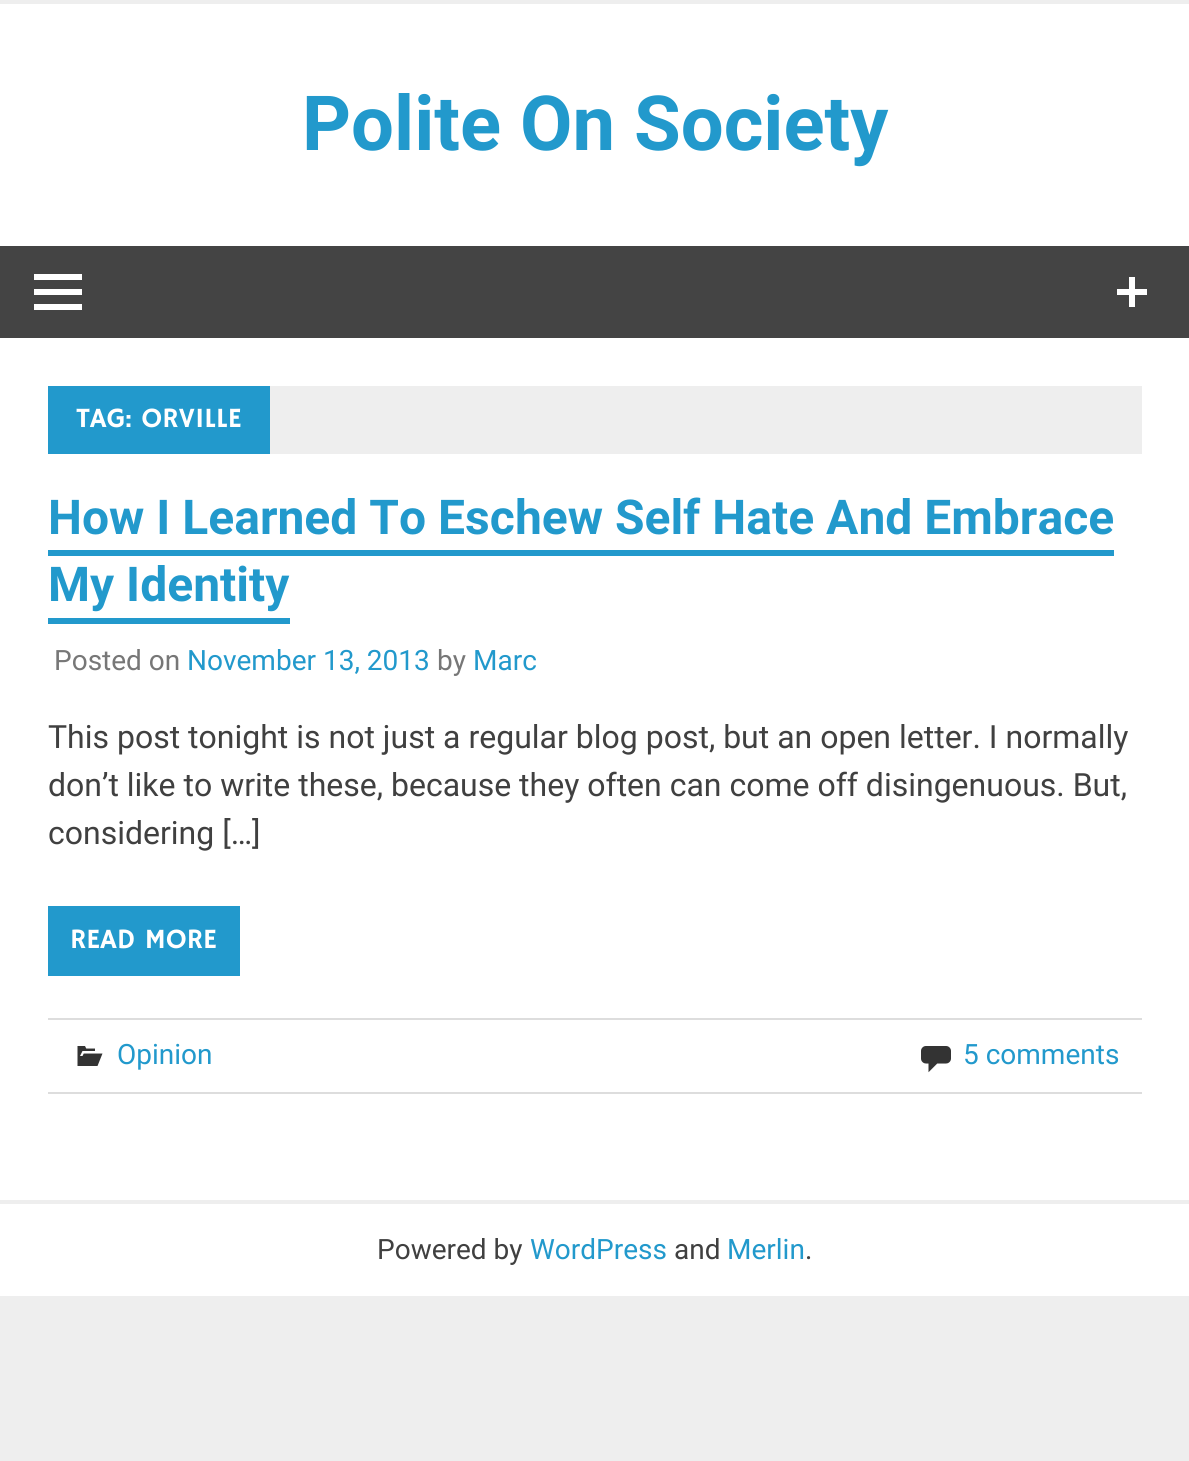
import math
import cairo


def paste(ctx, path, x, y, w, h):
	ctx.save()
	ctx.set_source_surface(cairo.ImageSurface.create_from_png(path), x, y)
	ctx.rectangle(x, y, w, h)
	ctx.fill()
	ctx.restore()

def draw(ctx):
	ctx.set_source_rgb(0.933, 0.933, 0.933)
	ctx.paint()
	ctx.set_source_rgb(1, 1, 1)
	ctx.rectangle(0, 4, 1189, 1292)
	ctx.fill()
	ctx.select_font_face('Roboto', cairo.FONT_SLANT_NORMAL, cairo.FONT_WEIGHT_BOLD)
	ctx.set_font_size(76)
	ctx.set_source_rgb(0.133, 0.6, 0.8)
	ctx.move_to(302, 150)
	ctx.show_text('Polite On Society')
	ctx.set_source_rgb(0.267, 0.267, 0.267)
	ctx.rectangle(0, 246, 1189, 92)
	ctx.fill()
	paste(ctx, 'media/1.png', 1117, 277, 30, 30)
	ctx.set_source_rgb(1, 1, 1)
	ctx.new_path()
	ctx.move_to(34, 310)
	ctx.line_to(34, 304)
	ctx.line_to(82, 304)
	ctx.line_to(82, 310)
	ctx.close_path()
	ctx.move_to(34, 274)
	ctx.line_to(82, 274)
	ctx.line_to(82, 280)
	ctx.line_to(34, 280)
	ctx.close_path()
	ctx.move_to(34, 295)
	ctx.line_to(34, 289)
	ctx.line_to(82, 289)
	ctx.line_to(82, 295)
	ctx.close_path()
	ctx.fill()
	ctx.set_source_rgb(0.933, 0.933, 0.933)
	ctx.rectangle(270, 386, 872, 68)
	ctx.fill()
	ctx.set_source_rgb(0.133, 0.6, 0.8)
	ctx.rectangle(48, 386, 222, 68)
	ctx.fill()
	ctx.select_font_face('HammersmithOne')
	ctx.set_font_size(28)
	ctx.set_source_rgb(1, 1, 1)
	ctx.move_to(76, 427)
	ctx.show_text('TAG: ORVILLE')
	ctx.select_font_face('Roboto', cairo.FONT_SLANT_NORMAL, cairo.FONT_WEIGHT_BOLD)
	ctx.set_font_size(48)
	ctx.set_source_rgb(0.133, 0.6, 0.8)
	ctx.move_to(48, 534)
	ctx.show_text('How I Learned To Eschew Self Hate And Embrace')
	ctx.move_to(48, 601)
	ctx.show_text('My Identity')
	ctx.rectangle(48, 550, 1066, 6)
	ctx.fill()
	ctx.rectangle(48, 618, 242, 6)
	ctx.fill()
	ctx.select_font_face('Roboto')
	ctx.set_font_size(28)
	ctx.set_source_rgb(0.467, 0.467, 0.467)
	ctx.move_to(54, 670)
	ctx.show_text('Posted on')
	ctx.set_source_rgb(0.133, 0.6, 0.8)
	ctx.move_to(187, 670)
	ctx.show_text('November 13, 2013')
	ctx.set_source_rgb(0.467, 0.467, 0.467)
	ctx.move_to(437, 670)
	ctx.show_text('by')
	ctx.set_source_rgb(0.133, 0.6, 0.8)
	ctx.move_to(473, 670)
	ctx.show_text('Marc')
	ctx.set_font_size(32)
	ctx.set_source_rgb(0.251, 0.251, 0.251)
	for x, y, s in [
		(48, 748, 'This post tonight is not just a regular blog post, but an open letter. I normally'),
		(48, 796, 'don’t like to write these, because they often can come off disingenuous. But,'),
		(48, 844, 'considering […]'),
	]:
		ctx.move_to(x, y)
		ctx.show_text(s)
	ctx.set_source_rgb(0.133, 0.6, 0.8)
	ctx.rectangle(48, 906, 192, 70)
	ctx.fill()
	ctx.select_font_face('HammersmithOne')
	ctx.set_font_size(28)
	ctx.set_source_rgb(1, 1, 1)
	ctx.move_to(70, 948)
	ctx.show_text('READ MORE')
	ctx.set_source_rgb(0.867, 0.867, 0.867)
	ctx.rectangle(48, 1018, 1094, 2)
	ctx.fill()
	ctx.rectangle(48, 1092, 1094, 2)
	ctx.fill()
	paste(ctx, 'media/2.png', 77, 1046, 26, 20)
	ctx.select_font_face('Roboto')
	ctx.set_source_rgb(0.133, 0.6, 0.8)
	ctx.move_to(117, 1064)
	ctx.show_text('Opinion')
	paste(ctx, 'media/3.png', 921, 1046, 30, 27)
	ctx.move_to(963, 1064)
	ctx.show_text('5 comments')
	ctx.set_source_rgb(0.933, 0.933, 0.933)
	ctx.rectangle(0, 1200, 1189, 4)
	ctx.fill()
	ctx.set_source_rgb(0.251, 0.251, 0.251)
	ctx.move_to(377, 1259)
	ctx.show_text('Powered by')
	ctx.set_source_rgb(0.133, 0.6, 0.8)
	ctx.move_to(530, 1259)
	ctx.show_text('WordPress')
	ctx.set_source_rgb(0.251, 0.251, 0.251)
	ctx.move_to(674, 1259)
	ctx.show_text('and')
	ctx.set_source_rgb(0.133, 0.6, 0.8)
	ctx.move_to(727, 1259)
	ctx.show_text('Merlin')
	ctx.set_source_rgb(0.251, 0.251, 0.251)
	ctx.move_to(805, 1259)
	ctx.show_text('.')


surface = cairo.ImageSurface(cairo.FORMAT_RGB24, 1189, 1461)
ctx = cairo.Context(surface)
options = cairo.FontOptions()
options.set_hint_metrics(cairo.HINT_METRICS_OFF)
options.set_hint_style(cairo.HINT_STYLE_NONE)
ctx.set_font_options(options)
ctx.set_miter_limit(4)
draw(ctx)
surface.write_to_png('image.png')
